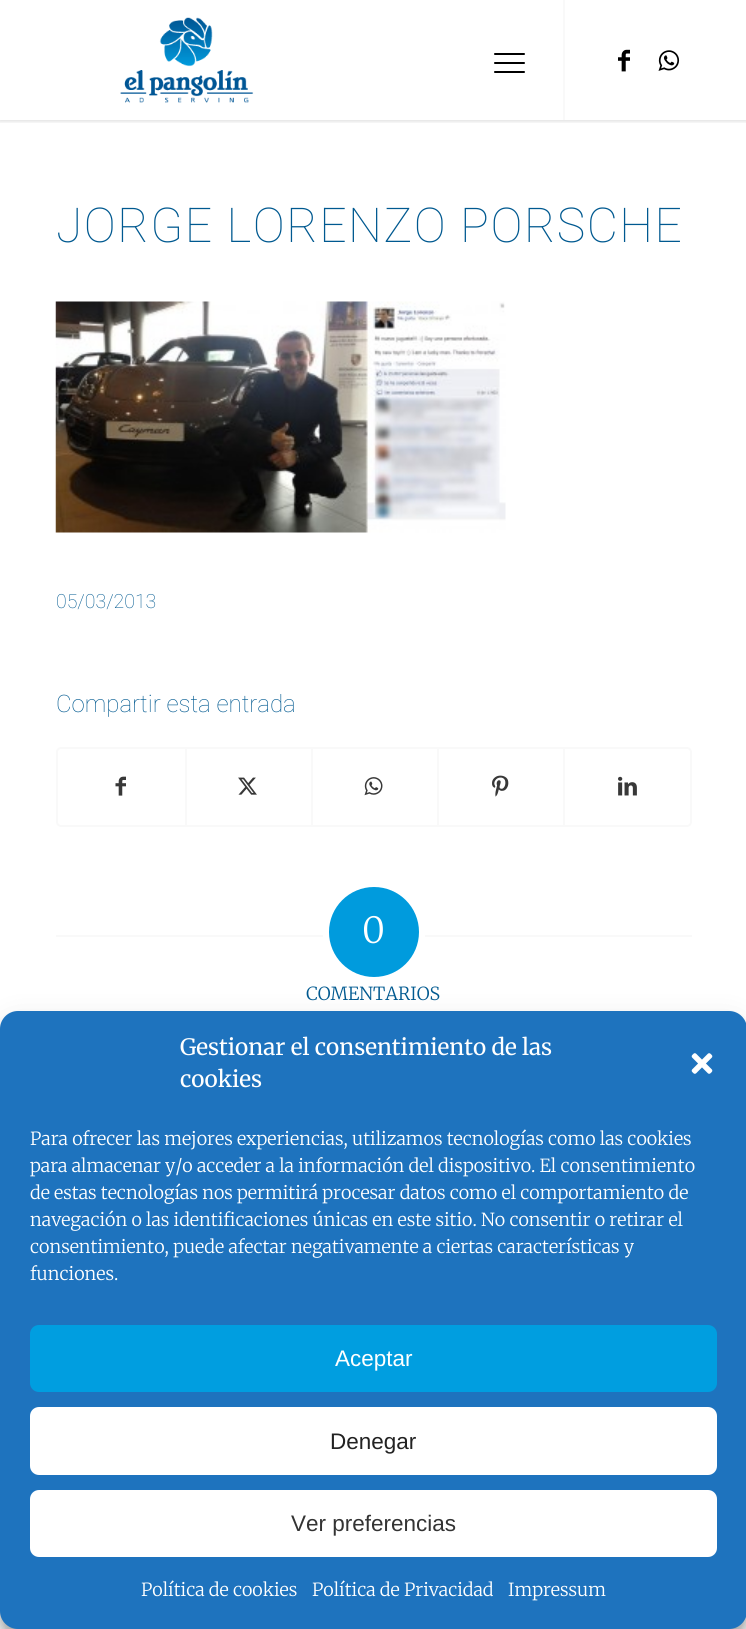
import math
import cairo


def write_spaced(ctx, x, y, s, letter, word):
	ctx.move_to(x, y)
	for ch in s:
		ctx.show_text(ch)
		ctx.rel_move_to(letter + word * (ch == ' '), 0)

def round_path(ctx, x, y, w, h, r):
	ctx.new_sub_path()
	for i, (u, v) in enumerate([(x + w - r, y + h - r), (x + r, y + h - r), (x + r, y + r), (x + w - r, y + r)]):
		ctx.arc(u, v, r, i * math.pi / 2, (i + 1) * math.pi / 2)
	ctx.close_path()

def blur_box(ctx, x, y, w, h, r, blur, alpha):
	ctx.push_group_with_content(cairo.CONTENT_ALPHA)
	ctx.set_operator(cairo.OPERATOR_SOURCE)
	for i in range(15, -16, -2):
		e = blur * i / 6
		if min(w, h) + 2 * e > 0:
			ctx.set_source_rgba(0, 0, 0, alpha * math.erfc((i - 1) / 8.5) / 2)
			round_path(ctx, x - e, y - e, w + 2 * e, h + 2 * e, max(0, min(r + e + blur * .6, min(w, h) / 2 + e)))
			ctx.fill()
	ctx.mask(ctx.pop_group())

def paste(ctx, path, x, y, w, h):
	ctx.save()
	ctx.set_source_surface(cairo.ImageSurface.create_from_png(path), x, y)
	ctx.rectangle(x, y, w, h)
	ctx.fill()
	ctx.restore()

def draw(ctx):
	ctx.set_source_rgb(1, 1, 1)
	ctx.paint()
	ctx.save()
	ctx.rectangle(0, 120, 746, 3)
	ctx.clip()
	ctx.set_source_rgb(0, 0, 0)
	blur_box(ctx, -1, -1, 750, 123, 0, 1.5, 0.1)
	ctx.restore()
	paste(ctx, 'media/1.png', 120, 17, 134, 86)
	ctx.set_source_rgb(0.973, 0.973, 0.973)
	ctx.rectangle(563, 0, 2, 120)
	ctx.fill()
	ctx.set_source_rgb(0, 0, 0)
	round_path(ctx, 494, 62, 31, 2, 1)
	ctx.fill()
	round_path(ctx, 494, 53, 31, 2, 1)
	ctx.fill()
	round_path(ctx, 494, 71, 31, 2, 1)
	ctx.fill()
	paste(ctx, 'media/2.png', 618, 49, 12, 23)
	paste(ctx, 'media/3.png', 658, 50, 22, 21)
	ctx.select_font_face('Roboto Thin')
	ctx.set_font_size(48)
	ctx.set_source_rgb(0, 0.349, 0.565)
	write_spaced(ctx, 56, 242, 'JORGE LORENZO PORSCHE', 1.5, 0)
	paste(ctx, 'media/4.png', 55, 301, 451, 232)
	ctx.set_font_size(19.5)
	ctx.move_to(56, 608)
	ctx.show_text('05/03/2013')
	ctx.set_font_size(24)
	ctx.move_to(56, 712)
	ctx.show_text('Compartir esta entrada')
	round_path(ctx, 57, 748, 634, 78, 4)
	ctx.set_source_rgb(0.973, 0.973, 0.973)
	ctx.stroke()
	paste(ctx, 'media/5.png', 115, 776, 11, 20)
	ctx.rectangle(185, 749, 2, 76)
	ctx.fill()
	paste(ctx, 'media/6.png', 238, 777, 19, 18)
	ctx.rectangle(311, 749, 2, 76)
	ctx.fill()
	paste(ctx, 'media/7.png', 364, 777, 19, 19)
	ctx.rectangle(437, 749, 2, 76)
	ctx.fill()
	paste(ctx, 'media/8.png', 492, 775, 17, 22)
	ctx.rectangle(563, 749, 2, 76)
	ctx.fill()
	paste(ctx, 'media/9.png', 618, 776, 19, 20)
	ctx.rectangle(56, 935, 267, 2)
	ctx.fill()
	ctx.set_source_rgb(0, 0.608, 0.867)
	ctx.arc(374, 932, 45, 0, 2 * math.pi)
	ctx.fill()
	ctx.select_font_face('Merriweather Light')
	ctx.set_font_size(36)
	ctx.set_source_rgb(1, 1, 1)
	ctx.move_to(362, 943)
	ctx.show_text('0')
	ctx.set_source_rgb(0.973, 0.973, 0.973)
	ctx.rectangle(425, 935, 267, 2)
	ctx.fill()
	ctx.set_font_size(18)
	ctx.set_source_rgb(0, 0.349, 0.565)
	ctx.move_to(306, 1000)
	ctx.show_text('COMENTARIOS')
	ctx.set_source_rgb(0, 0, 0)
	blur_box(ctx, 0, 1020, 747, 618, 18, 4.5, 0.23)
	blur_box(ctx, 0, 1026, 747, 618, 18, 15, 0.19)
	ctx.set_source_rgb(0.118, 0.451, 0.745)
	round_path(ctx, 0, 1011, 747, 618, 18)
	ctx.fill()
	ctx.select_font_face('Merriweather')
	ctx.set_font_size(22.5)
	ctx.set_source_rgb(1, 1, 1)
	ctx.move_to(180, 1055)
	ctx.show_text('Gestionar el consentimiento de las')
	ctx.move_to(180, 1087)
	ctx.show_text('cookies')
	paste(ctx, 'media/10.png', 691, 1053, 22, 21)
	ctx.select_font_face('Merriweather Light')
	ctx.set_font_size(18)
	for x, y, s in [
		(30, 1145, 'Para ofrecer las mejores experiencias, utilizamos tecnologías como las cookies'),
		(30, 1172, 'para almacenar y/o acceder a la información del dispositivo. El consentimiento'),
		(30, 1199, 'de estas tecnologías nos permitirá procesar datos como el comportamiento de'),
		(30, 1226, 'navegación o las identificaciones únicas en este sitio. No consentir o retirar el'),
		(30, 1253, 'consentimiento, puede afectar negativamente a ciertas características y'),
		(30, 1280, 'funciones.'),
	]:
		ctx.move_to(x, y)
		ctx.show_text(s)
	ctx.set_source_rgb(0, 0.62, 0.878)
	round_path(ctx, 31, 1326, 685, 65, 8)
	ctx.fill_preserve()
	ctx.stroke()
	ctx.select_font_face('Liberation Sans')
	ctx.set_font_size(22.5)
	ctx.set_source_rgb(1, 1, 1)
	ctx.move_to(335, 1366)
	ctx.show_text('Aceptar')
	round_path(ctx, 31, 1408, 685, 66, 8)
	ctx.fill_preserve()
	ctx.stroke()
	ctx.set_source_rgb(0.133, 0.133, 0.133)
	ctx.move_to(330, 1449)
	ctx.show_text('Denegar')
	ctx.set_source_rgb(1, 1, 1)
	round_path(ctx, 31, 1491, 685, 65, 8)
	ctx.fill_preserve()
	ctx.stroke()
	ctx.set_source_rgb(0.2, 0.2, 0.2)
	ctx.move_to(291, 1531)
	ctx.show_text('Ver preferencias')
	ctx.select_font_face('Merriweather Light')
	ctx.set_font_size(18)
	ctx.set_source_rgb(1, 1, 1)
	for x, y, s in [
		(141, 1596, 'Política de cookies'),
		(312, 1596, 'Política de Privacidad'),
		(508, 1596, 'Impressum'),
	]:
		ctx.move_to(x, y)
		ctx.show_text(s)


surface = cairo.ImageSurface(cairo.FORMAT_RGB24, 746, 1629)
ctx = cairo.Context(surface)
options = cairo.FontOptions()
options.set_hint_metrics(cairo.HINT_METRICS_OFF)
options.set_hint_style(cairo.HINT_STYLE_NONE)
ctx.set_font_options(options)
ctx.set_miter_limit(4)
draw(ctx)
surface.write_to_png('image.png')
